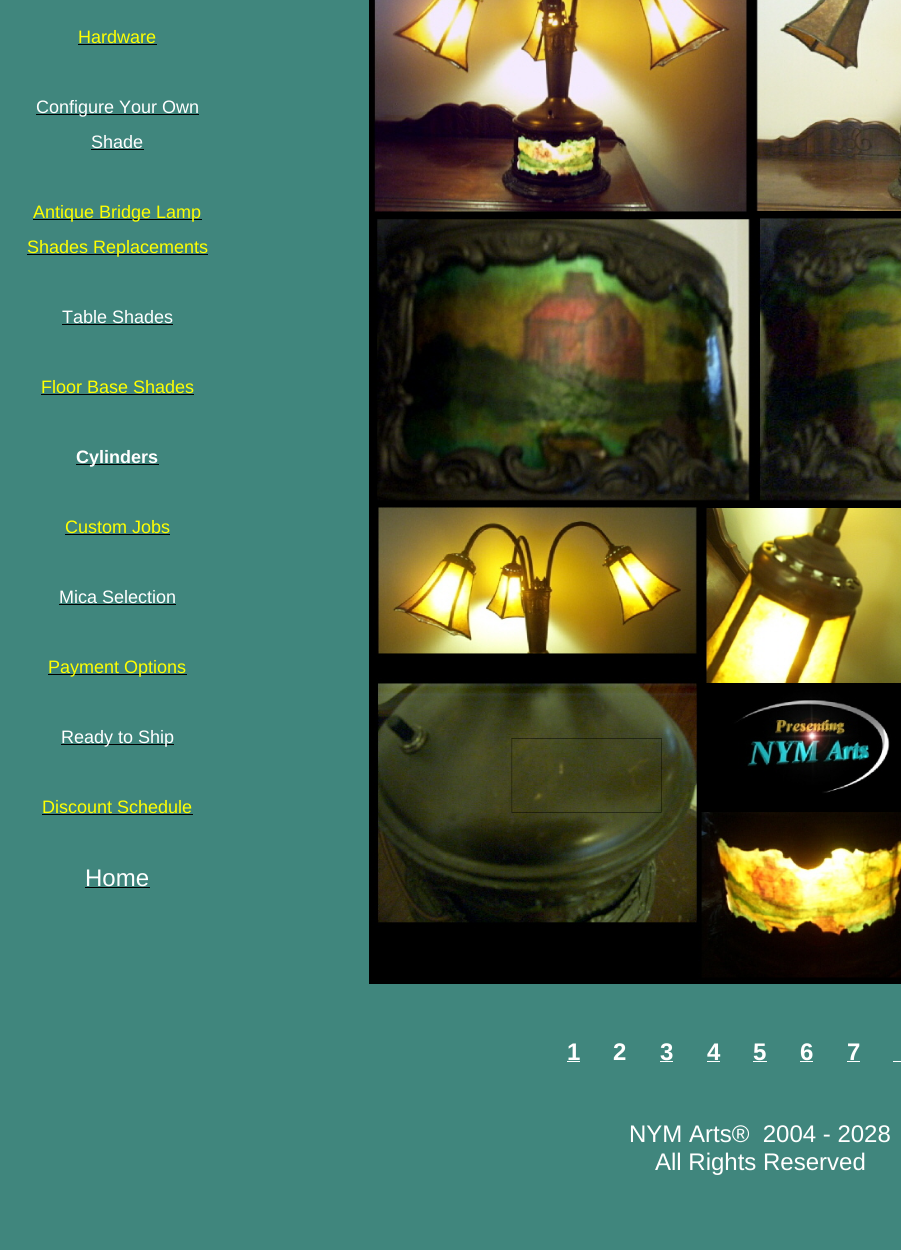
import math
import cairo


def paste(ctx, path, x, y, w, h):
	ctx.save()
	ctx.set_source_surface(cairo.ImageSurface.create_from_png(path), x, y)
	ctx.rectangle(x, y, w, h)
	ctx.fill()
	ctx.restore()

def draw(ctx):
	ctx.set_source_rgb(0.251, 0.525, 0.49)
	ctx.paint()
	ctx.select_font_face('Liberation Sans')
	ctx.set_font_size(18)
	ctx.set_source_rgb(1, 1, 0)
	ctx.move_to(78, 43)
	ctx.show_text('Hardware')
	ctx.set_source_rgb(0, 0, 0)
	ctx.rectangle(78, 44, 79, 1)
	ctx.fill()
	ctx.rectangle(36, 114, 163, 1)
	ctx.fill()
	ctx.set_source_rgb(1, 1, 1)
	ctx.move_to(36, 113)
	ctx.show_text('Configure Your Own')
	ctx.move_to(91, 148)
	ctx.show_text('Shade')
	ctx.set_source_rgb(0, 0, 0)
	ctx.rectangle(91, 149, 53, 1)
	ctx.fill()
	ctx.rectangle(33, 219, 169, 1)
	ctx.fill()
	ctx.set_source_rgb(1, 1, 0)
	ctx.move_to(33, 218)
	ctx.show_text('Antique Bridge Lamp')
	ctx.set_source_rgb(0, 0, 0)
	ctx.rectangle(27, 254, 181, 1)
	ctx.fill()
	ctx.set_source_rgb(1, 1, 0)
	ctx.move_to(27, 253)
	ctx.show_text('Shades Replacements')
	ctx.set_source_rgb(1, 1, 1)
	ctx.move_to(62, 323)
	ctx.show_text('Table Shades')
	ctx.set_source_rgb(0, 0, 0)
	ctx.rectangle(62, 324, 111, 1)
	ctx.fill()
	ctx.set_source_rgb(1, 1, 0)
	ctx.move_to(41, 393)
	ctx.show_text('Floor Base Shades')
	ctx.set_source_rgb(0, 0, 0)
	ctx.rectangle(41, 394, 153, 1)
	ctx.fill()
	ctx.rectangle(76, 464, 83, 1)
	ctx.fill()
	ctx.select_font_face('Liberation Sans', cairo.FONT_SLANT_NORMAL, cairo.FONT_WEIGHT_BOLD)
	ctx.set_source_rgb(1, 1, 1)
	ctx.move_to(76, 463)
	ctx.show_text('Cylinders')
	ctx.select_font_face('Liberation Sans')
	ctx.set_source_rgb(1, 1, 0)
	ctx.move_to(65, 533)
	ctx.show_text('Custom Jobs')
	ctx.set_source_rgb(0, 0, 0)
	ctx.rectangle(65, 534, 105, 1)
	ctx.fill()
	ctx.set_source_rgb(1, 1, 1)
	ctx.move_to(59, 603)
	ctx.show_text('Mica Selection')
	ctx.set_source_rgb(0, 0, 0)
	ctx.rectangle(59, 604, 117, 1)
	ctx.fill()
	ctx.rectangle(48, 674, 139, 1)
	ctx.fill()
	ctx.set_source_rgb(1, 1, 0)
	ctx.move_to(48, 673)
	ctx.show_text('Payment Options')
	ctx.set_source_rgb(0, 0, 0)
	ctx.rectangle(61, 744, 113, 1)
	ctx.fill()
	ctx.set_source_rgb(1, 1, 1)
	ctx.move_to(61, 743)
	ctx.show_text('Ready to Ship')
	ctx.set_source_rgb(1, 1, 0)
	ctx.move_to(42, 813)
	ctx.show_text('Discount Schedule')
	ctx.set_source_rgb(0, 0, 0)
	ctx.rectangle(42, 814, 151, 1)
	ctx.fill()
	ctx.set_font_size(24)
	ctx.set_source_rgb(1, 1, 1)
	ctx.move_to(85, 886)
	ctx.show_text('Home')
	ctx.set_source_rgb(0, 0, 0)
	ctx.rectangle(85, 887, 65, 1)
	ctx.fill()
	paste(ctx, 'media/1.png', 369, 0, 532, 984)
	ctx.select_font_face('Liberation Sans', cairo.FONT_SLANT_NORMAL, cairo.FONT_WEIGHT_BOLD)
	ctx.set_source_rgb(1, 1, 1)
	ctx.move_to(567, 1060)
	ctx.show_text('1')
	ctx.rectangle(567, 1061, 13, 1)
	ctx.fill()
	ctx.move_to(613, 1060)
	ctx.show_text('2')
	ctx.move_to(660, 1060)
	ctx.show_text('3')
	ctx.rectangle(660, 1061, 13, 1)
	ctx.fill()
	ctx.move_to(707, 1060)
	ctx.show_text('4')
	ctx.rectangle(707, 1061, 13, 1)
	ctx.fill()
	ctx.move_to(753, 1060)
	ctx.show_text('5')
	ctx.rectangle(753, 1061, 14, 1)
	ctx.fill()
	ctx.move_to(800, 1060)
	ctx.show_text('6')
	ctx.rectangle(800, 1061, 13, 1)
	ctx.fill()
	ctx.move_to(847, 1060)
	ctx.show_text('7')
	ctx.rectangle(847, 1061, 13, 1)
	ctx.fill()
	ctx.rectangle(893, 1061, 8, 1)
	ctx.fill()
	ctx.select_font_face('Liberation Sans')
	ctx.move_to(629, 1142)
	ctx.show_text('NYM Arts®  2004 - 2028')
	ctx.move_to(655, 1170)
	ctx.show_text('All Rights Reserved')


surface = cairo.ImageSurface(cairo.FORMAT_RGB24, 901, 1250)
ctx = cairo.Context(surface)
options = cairo.FontOptions()
options.set_hint_metrics(cairo.HINT_METRICS_OFF)
options.set_hint_style(cairo.HINT_STYLE_NONE)
ctx.set_font_options(options)
ctx.set_miter_limit(4)
draw(ctx)
surface.write_to_png('image.png')
